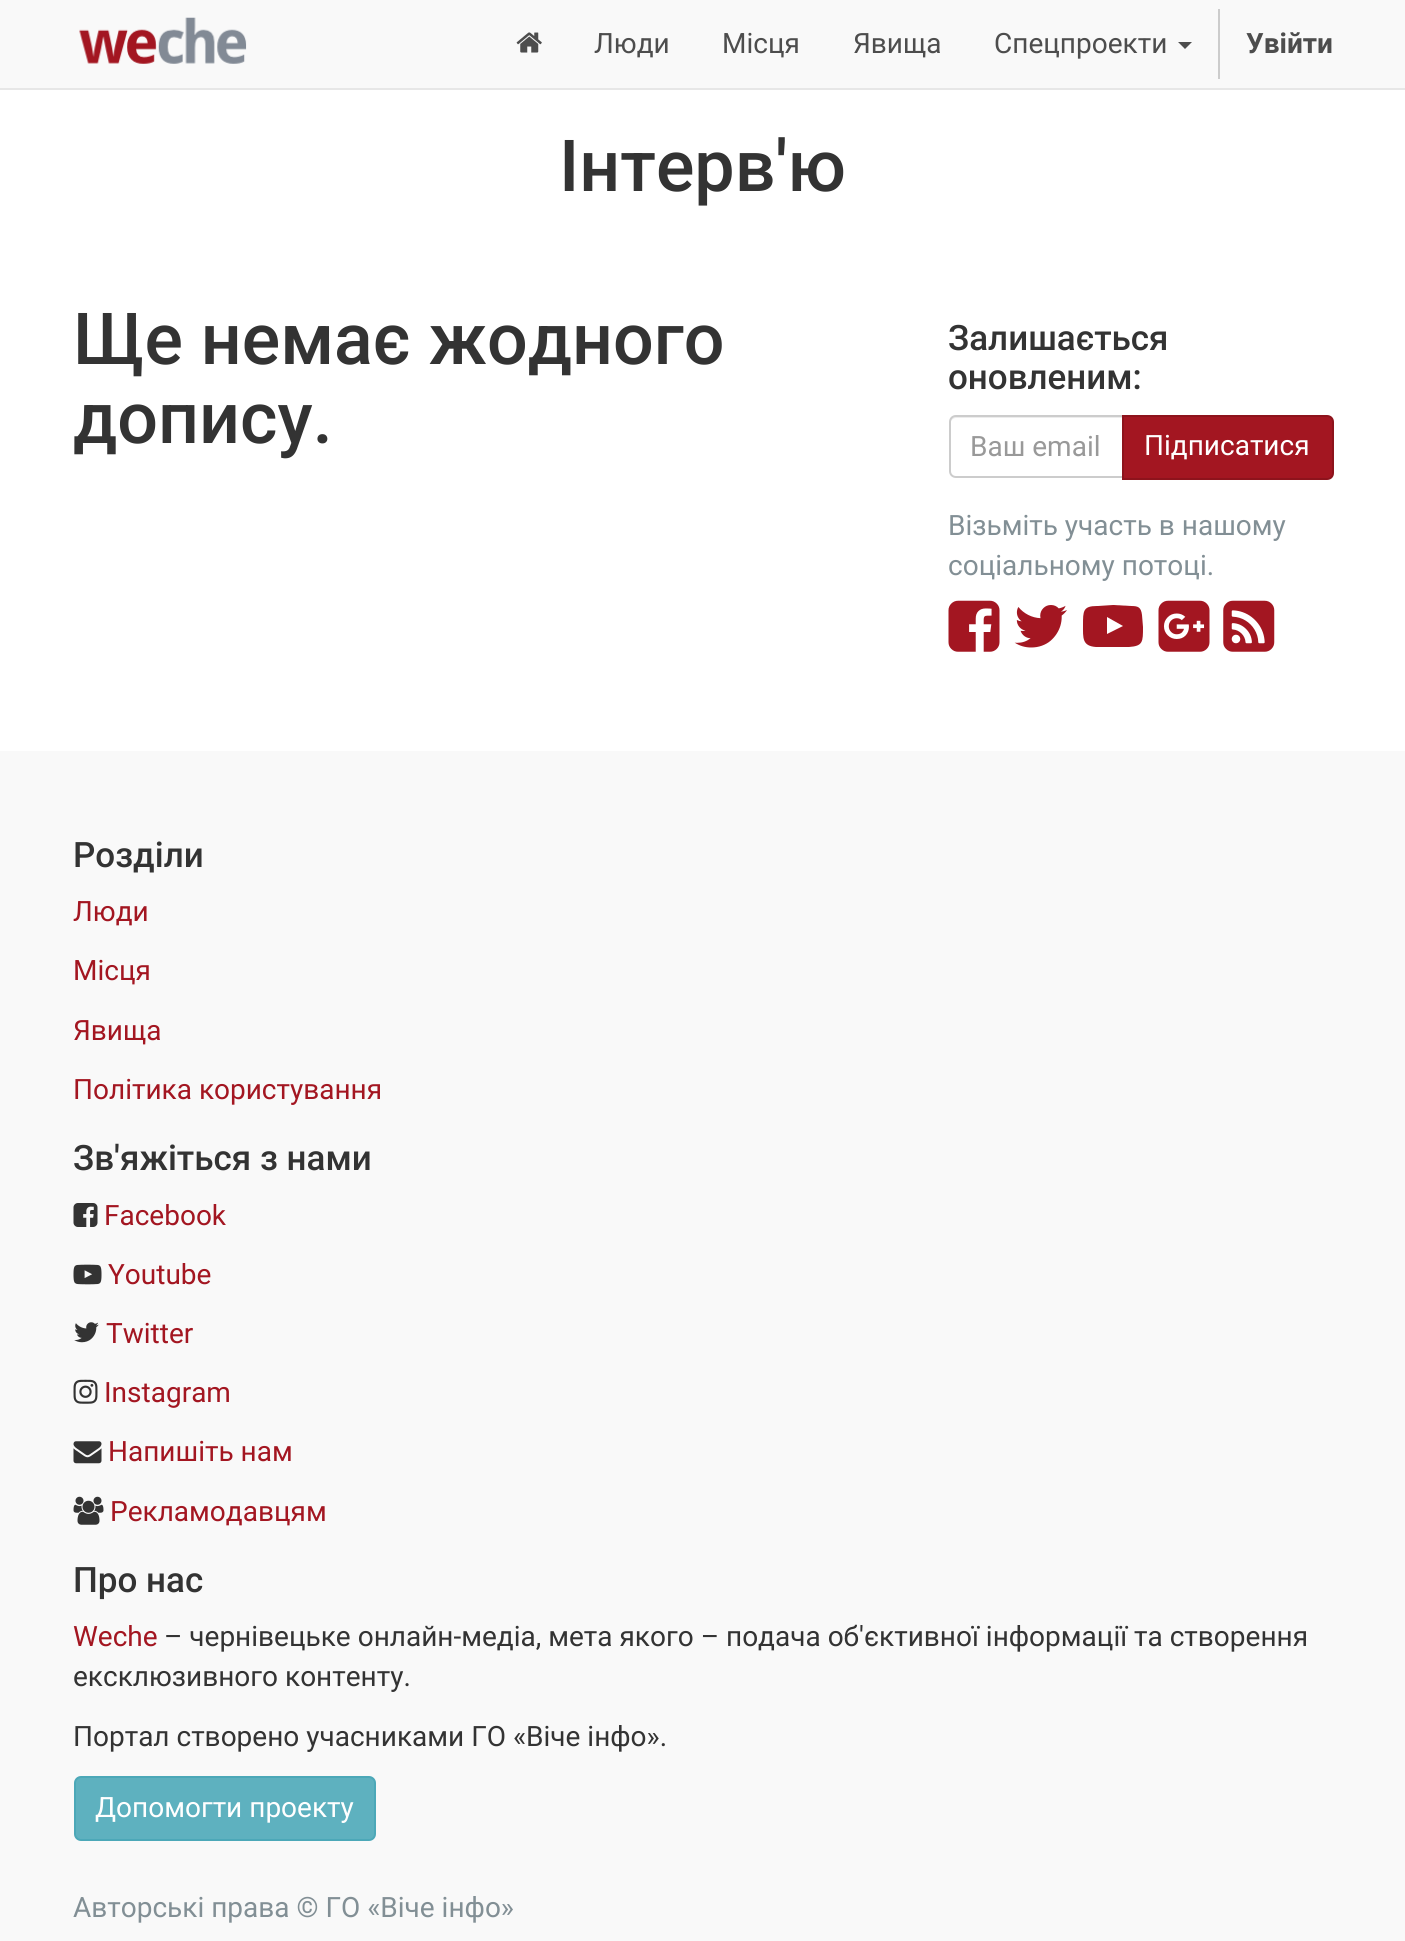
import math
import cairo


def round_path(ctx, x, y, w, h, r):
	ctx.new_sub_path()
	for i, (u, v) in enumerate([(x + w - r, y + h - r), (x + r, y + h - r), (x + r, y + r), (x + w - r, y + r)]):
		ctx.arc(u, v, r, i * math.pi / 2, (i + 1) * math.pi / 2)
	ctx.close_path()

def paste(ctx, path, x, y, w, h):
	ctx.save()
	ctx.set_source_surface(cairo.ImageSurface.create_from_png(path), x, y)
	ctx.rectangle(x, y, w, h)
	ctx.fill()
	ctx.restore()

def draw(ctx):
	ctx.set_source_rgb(1, 1, 1)
	ctx.paint()
	ctx.set_source_rgb(0.973, 0.973, 0.973)
	ctx.rectangle(0, 0, 1405, 88)
	ctx.fill()
	ctx.set_source_rgb(0.906, 0.906, 0.906)
	ctx.rectangle(0, 88, 1405, 2)
	ctx.fill()
	paste(ctx, 'media/1.png', 79, 17, 168, 47)
	paste(ctx, 'media/2.png', 516, 32, 26, 21)
	ctx.select_font_face('Roboto')
	ctx.set_font_size(28)
	ctx.set_source_rgb(0.302, 0.302, 0.302)
	for x, y, s in [
		(594, 53, 'Люди'),
		(722, 53, 'Місця'),
		(853, 53, 'Явища'),
		(994, 53, 'Спецпроекти'),
	]:
		ctx.move_to(x, y)
		ctx.show_text(s)
	ctx.new_path()
	ctx.move_to(1178, 42)
	ctx.line_to(1192, 42)
	ctx.line_to(1185, 49)
	ctx.close_path()
	ctx.fill()
	ctx.set_source_rgb(0.8, 0.8, 0.8)
	ctx.rectangle(1218, 9, 2, 70)
	ctx.fill()
	ctx.select_font_face('Roboto', cairo.FONT_SLANT_NORMAL, cairo.FONT_WEIGHT_BOLD)
	ctx.set_source_rgb(0.302, 0.302, 0.302)
	ctx.move_to(1246, 53)
	ctx.show_text('Увійти')
	ctx.select_font_face('Roboto Medium')
	ctx.set_font_size(71.75)
	ctx.set_source_rgb(0.2, 0.2, 0.2)
	for x, y, s in [
		(559, 191, 'Інтерв\'ю'),
		(73, 364, 'Ще немає жодного'),
		(73, 443, 'допису.'),
	]:
		ctx.move_to(x, y)
		ctx.show_text(s)
	ctx.set_font_size(35)
	ctx.move_to(948, 350)
	ctx.show_text('Залишається')
	ctx.move_to(948, 389)
	ctx.show_text('оновленим:')
	ctx.set_source_rgb(0.925, 0.925, 0.925)
	ctx.new_path()
	ctx.move_to(956, 418)
	ctx.line_to(1122, 418)
	ctx.line_to(1122, 417)
	ctx.line_to(955, 417)
	ctx.curve_to(952, 417, 950, 419, 950, 422)
	ctx.line_to(950, 424)
	ctx.curve_to(950, 421, 953, 418, 956, 418)
	ctx.close_path()
	ctx.fill()
	ctx.new_path()
	ctx.move_to(956, 416)
	ctx.line_to(1123, 416)
	ctx.line_to(1123, 477)
	ctx.line_to(956, 477)
	ctx.curve_to(952.5, 477, 950, 474.5, 950, 471)
	ctx.line_to(950, 422)
	ctx.curve_to(950, 418.5, 952.5, 416, 956, 416)
	ctx.close_path()
	ctx.set_source_rgb(0.8, 0.8, 0.8)
	ctx.stroke()
	ctx.select_font_face('Roboto')
	ctx.set_font_size(28)
	ctx.set_source_rgb(0.6, 0.6, 0.6)
	ctx.move_to(970, 456)
	ctx.show_text('Ваш email')
	ctx.set_source_rgb(0.639, 0.086, 0.129)
	ctx.new_path()
	ctx.move_to(1123, 416)
	ctx.line_to(1327, 416)
	ctx.curve_to(1330.5, 416, 1333, 418.5, 1333, 422)
	ctx.line_to(1333, 473)
	ctx.curve_to(1333, 476.5, 1330.5, 479, 1327, 479)
	ctx.line_to(1123, 479)
	ctx.close_path()
	ctx.fill_preserve()
	ctx.set_source_rgb(0.553, 0.075, 0.11)
	ctx.stroke()
	ctx.set_source_rgb(1, 1, 1)
	ctx.move_to(1144, 455)
	ctx.show_text('Підписатися')
	ctx.set_source_rgb(0.51, 0.561, 0.584)
	ctx.move_to(948, 535)
	ctx.show_text('Візьміть участь в нашому')
	ctx.move_to(948, 575)
	ctx.show_text('соціальному потоці.')
	paste(ctx, 'media/3.png', 948, 600, 52, 52)
	paste(ctx, 'media/4.png', 1014, 605, 53, 43)
	ctx.set_source_rgb(0.639, 0.086, 0.129)
	ctx.new_path()
	ctx.move_to(1107, 634)
	ctx.line_to(1123, 626)
	ctx.line_to(1107, 617)
	ctx.close_path()
	ctx.move_to(1113, 605)
	ctx.line_to(1131, 606)
	ctx.curve_to(1138, 606, 1141, 607, 1142, 615)
	ctx.line_to(1143, 627)
	ctx.curve_to(1143, 642, 1143, 646, 1129, 647)
	ctx.line_to(1113, 647)
	ctx.line_to(1096, 647)
	ctx.curve_to(1082, 646, 1083, 638, 1083, 625)
	ctx.curve_to(1083, 611, 1083, 606, 1097, 606)
	ctx.close_path()
	ctx.fill()
	paste(ctx, 'media/5.png', 1158, 600, 52, 52)
	paste(ctx, 'media/6.png', 1223, 600, 52, 52)
	ctx.set_source_rgb(0.973, 0.973, 0.973)
	ctx.rectangle(0, 751, 1405, 1190)
	ctx.fill()
	ctx.select_font_face('Roboto Medium')
	ctx.set_font_size(35)
	ctx.set_source_rgb(0.2, 0.2, 0.2)
	ctx.move_to(73, 867)
	ctx.show_text('Розділи')
	ctx.select_font_face('Roboto')
	ctx.set_font_size(28)
	ctx.set_source_rgb(0.639, 0.086, 0.129)
	for x, y, s in [
		(73, 921, 'Люди'),
		(73, 980, 'Місця'),
		(73, 1040, 'Явища'),
		(73, 1099, 'Політика користування'),
	]:
		ctx.move_to(x, y)
		ctx.show_text(s)
	ctx.select_font_face('Roboto Medium')
	ctx.set_font_size(35)
	ctx.set_source_rgb(0.2, 0.2, 0.2)
	ctx.move_to(73, 1170)
	ctx.show_text('Зв\'яжіться з нами')
	paste(ctx, 'media/7.png', 73, 1203, 25, 24)
	ctx.select_font_face('Roboto')
	ctx.set_font_size(28)
	ctx.set_source_rgb(0.639, 0.086, 0.129)
	ctx.move_to(104, 1225)
	ctx.show_text('Facebook')
	paste(ctx, 'media/8.png', 73, 1264, 29, 21)
	ctx.move_to(108, 1284)
	ctx.show_text('Youtube')
	paste(ctx, 'media/9.png', 74, 1322, 25, 21)
	ctx.move_to(106, 1343)
	ctx.show_text('Twitter')
	paste(ctx, 'media/10.png', 73, 1379, 25, 25)
	ctx.move_to(104, 1402)
	ctx.show_text('Instagram')
	paste(ctx, 'media/11.png', 73, 1441, 29, 23)
	ctx.move_to(108, 1461)
	ctx.show_text('Напишіть нам')
	paste(ctx, 'media/12.png', 73, 1496, 31, 29)
	ctx.move_to(110, 1521)
	ctx.show_text('Рекламодавцям')
	ctx.select_font_face('Roboto Medium')
	ctx.set_font_size(35)
	ctx.set_source_rgb(0.2, 0.2, 0.2)
	ctx.move_to(73, 1592)
	ctx.show_text('Про нас')
	ctx.select_font_face('Roboto')
	ctx.set_font_size(28)
	ctx.set_source_rgb(0.639, 0.086, 0.129)
	ctx.move_to(73, 1646)
	ctx.show_text('Weche')
	ctx.set_source_rgb(0.2, 0.2, 0.2)
	for x, y, s in [
		(164, 1646, '– чернівецьке онлайн-медіа, мета якого – подача об\'єктивної інформації та створення'),
		(73, 1686, 'ексклюзивного контенту.'),
		(73, 1746, 'Портал створено учасниками ГО «Віче інфо».'),
	]:
		ctx.move_to(x, y)
		ctx.show_text(s)
	ctx.set_source_rgb(0.369, 0.694, 0.749)
	round_path(ctx, 75, 1777, 300, 63, 6)
	ctx.fill_preserve()
	ctx.set_source_rgb(0.298, 0.659, 0.722)
	ctx.stroke()
	ctx.set_source_rgb(1, 1, 1)
	ctx.move_to(95, 1817)
	ctx.show_text('Допомогти проекту')
	ctx.set_source_rgb(0.51, 0.561, 0.584)
	ctx.move_to(73, 1917)
	ctx.show_text('Авторські права © ГО «Віче інфо»')


surface = cairo.ImageSurface(cairo.FORMAT_RGB24, 1405, 1941)
ctx = cairo.Context(surface)
options = cairo.FontOptions()
options.set_hint_metrics(cairo.HINT_METRICS_OFF)
options.set_hint_style(cairo.HINT_STYLE_NONE)
ctx.set_font_options(options)
ctx.set_miter_limit(4)
draw(ctx)
surface.write_to_png('image.png')
